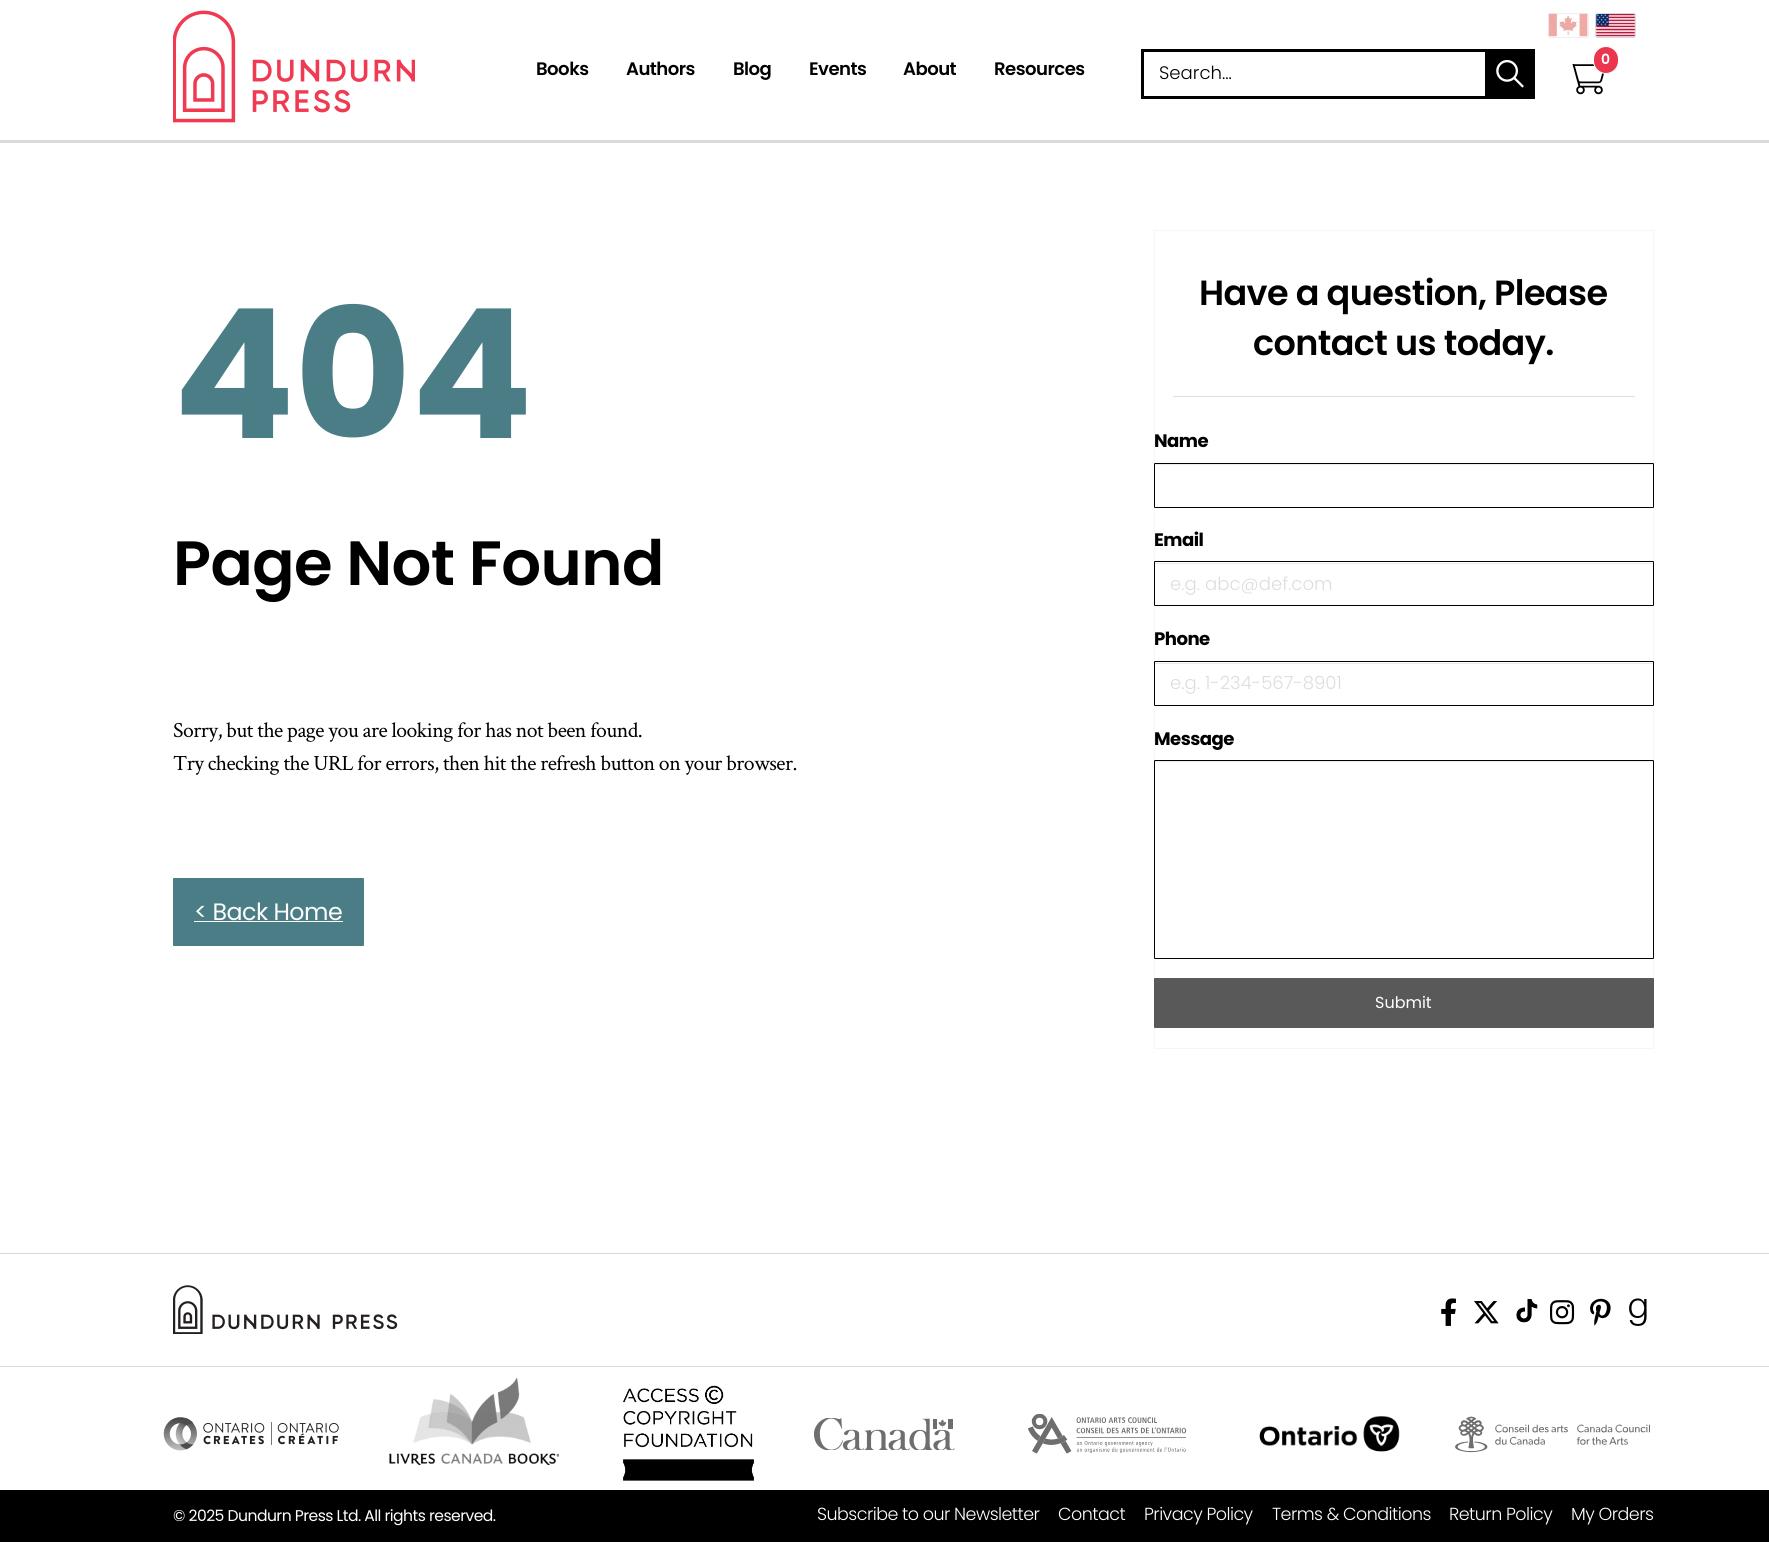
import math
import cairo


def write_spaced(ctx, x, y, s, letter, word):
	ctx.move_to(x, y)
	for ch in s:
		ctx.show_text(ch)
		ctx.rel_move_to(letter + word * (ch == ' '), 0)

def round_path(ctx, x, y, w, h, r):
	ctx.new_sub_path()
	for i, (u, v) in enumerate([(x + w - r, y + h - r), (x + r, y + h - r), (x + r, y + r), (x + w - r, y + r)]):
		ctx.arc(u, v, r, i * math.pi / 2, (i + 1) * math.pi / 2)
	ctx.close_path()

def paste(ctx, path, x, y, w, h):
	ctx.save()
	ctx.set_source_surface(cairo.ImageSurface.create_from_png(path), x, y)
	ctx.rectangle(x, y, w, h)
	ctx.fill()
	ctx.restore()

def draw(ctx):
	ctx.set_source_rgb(1, 1, 1)
	ctx.paint()
	ctx.set_source_rgb(0.851, 0.851, 0.851)
	ctx.rectangle(0, 140, 1769, 3)
	ctx.fill()
	paste(ctx, 'media/1.png', 173, 10, 242, 113)
	paste(ctx, 'media/2.png', 1548, 13, 40, 24)
	round_path(ctx, 1548.5, 13.5, 40, 24, 2)
	ctx.set_source_rgba(0.851, 0.851, 0.851, 0.4)
	ctx.set_line_width(1)
	ctx.stroke()
	paste(ctx, 'media/3.png', 1596, 13, 39, 24)
	round_path(ctx, 1595.5, 13.5, 40, 24, 2)
	ctx.set_source_rgb(0.851, 0.851, 0.851)
	ctx.stroke()
	paste(ctx, 'media/4.png', 1572, 64, 33, 31)
	ctx.set_source_rgb(0.925, 0.208, 0.306)
	round_path(ctx, 1593.5, 46.5, 25, 27, 12.5)
	ctx.fill_preserve()
	ctx.set_source_rgb(1, 1, 1)
	ctx.stroke()
	ctx.select_font_face('Poppins SemiBold')
	ctx.set_font_size(14)
	write_spaced(ctx, 1601, 64, '0', -0.53, 0)
	ctx.set_font_size(18.1)
	ctx.set_source_rgb(0, 0, 0)
	for x, y, s in [
		(536, 75, 'Books'),
		(626, 75, 'Authors'),
		(733, 75, 'Blog'),
		(809, 75, 'Events'),
		(903, 75, 'About'),
		(994, 75, 'Resources'),
	]:
		write_spaced(ctx, x, y, s, -0.53, 0)
	ctx.rectangle(1142.5, 50.5, 360, 47)
	ctx.set_line_width(3)
	ctx.stroke()
	ctx.select_font_face('Poppins Light')
	ctx.move_to(1159, 79)
	ctx.show_text('Search...')
	ctx.rectangle(1485, 49, 50, 50)
	ctx.fill()
	paste(ctx, 'media/5.png', 1496, 60, 28, 28)
	ctx.select_font_face('Poppins', cairo.FONT_SLANT_NORMAL, cairo.FONT_WEIGHT_BOLD)
	ctx.set_font_size(180)
	ctx.set_source_rgb(0.294, 0.49, 0.525)
	write_spaced(ctx, 173, 438, '404', -0.6, 0)
	ctx.select_font_face('Poppins SemiBold')
	ctx.set_font_size(62.5)
	ctx.set_source_rgb(0, 0, 0)
	write_spaced(ctx, 173, 585, 'Page Not Found', -0.6, 0)
	ctx.select_font_face('Crimson Text')
	ctx.set_font_size(21.75)
	write_spaced(ctx, 173, 737, 'Sorry, but the page you are looking for has not been found.', -0.53, 0)
	write_spaced(ctx, 173, 770, 'Try checking the URL for errors, then hit the refresh button on your browser.', -0.53, 0)
	ctx.set_source_rgb(0.294, 0.49, 0.525)
	round_path(ctx, 173, 878, 191, 68, 1)
	ctx.fill()
	ctx.select_font_face('Poppins')
	ctx.set_font_size(23.75)
	ctx.set_source_rgb(1, 1, 1)
	write_spaced(ctx, 194, 920, '< Back Home', -0.53, 0)
	ctx.rectangle(194, 921, 149, 1)
	ctx.fill()
	ctx.rectangle(1154.5, 230.5, 499, 818)
	ctx.set_source_rgb(0.961, 0.961, 0.961)
	ctx.set_line_width(1)
	ctx.stroke()
	ctx.select_font_face('Poppins SemiBold')
	ctx.set_font_size(35)
	ctx.set_source_rgb(0, 0, 0)
	write_spaced(ctx, 1199, 305, 'Have a question, Please', -0.6, 0)
	write_spaced(ctx, 1253, 355, 'contact us today.', -0.6, 0)
	ctx.set_source_rgb(0.867, 0.867, 0.867)
	ctx.rectangle(1173, 396, 462, 1)
	ctx.fill()
	ctx.select_font_face('Poppins', cairo.FONT_SLANT_NORMAL, cairo.FONT_WEIGHT_BOLD)
	ctx.set_font_size(18.1)
	ctx.set_source_rgb(0, 0, 0)
	write_spaced(ctx, 1154, 447, 'Name', -0.53, 0)
	ctx.set_source_rgb(1, 1, 1)
	round_path(ctx, 1154, 463, 500, 45, 1)
	ctx.fill()
	ctx.set_source_rgb(0.925, 0.925, 0.925)
	ctx.rectangle(1155, 464, 498, 1)
	ctx.fill()
	round_path(ctx, 1154.5, 463.5, 499, 44, 0.5)
	ctx.set_source_rgb(0, 0, 0)
	ctx.stroke()
	write_spaced(ctx, 1154, 546, 'Email', -0.53, 0)
	ctx.set_source_rgb(1, 1, 1)
	round_path(ctx, 1154, 561, 500, 45, 1)
	ctx.fill()
	ctx.set_source_rgb(0.925, 0.925, 0.925)
	ctx.rectangle(1155, 563, 498, 1)
	ctx.fill()
	round_path(ctx, 1154.5, 561.5, 499, 44, 0.5)
	ctx.set_source_rgb(0, 0, 0)
	ctx.stroke()
	ctx.select_font_face('Poppins Light')
	ctx.set_source_rgb(0.867, 0.867, 0.867)
	ctx.move_to(1170, 590)
	ctx.show_text('e.g. abc@def.com')
	ctx.select_font_face('Poppins', cairo.FONT_SLANT_NORMAL, cairo.FONT_WEIGHT_BOLD)
	ctx.set_source_rgb(0, 0, 0)
	write_spaced(ctx, 1154, 645, 'Phone', -0.53, 0)
	ctx.set_source_rgb(1, 1, 1)
	round_path(ctx, 1154, 661, 500, 45, 1)
	ctx.fill()
	ctx.set_source_rgb(0.925, 0.925, 0.925)
	ctx.rectangle(1155, 663, 498, 1)
	ctx.fill()
	round_path(ctx, 1154.5, 661.5, 499, 44, 0.5)
	ctx.set_source_rgb(0, 0, 0)
	ctx.stroke()
	ctx.select_font_face('Poppins Light')
	ctx.set_source_rgb(0.867, 0.867, 0.867)
	ctx.move_to(1170, 689)
	ctx.show_text('e.g. 1-234-567-8901')
	ctx.select_font_face('Poppins', cairo.FONT_SLANT_NORMAL, cairo.FONT_WEIGHT_BOLD)
	ctx.set_source_rgb(0, 0, 0)
	write_spaced(ctx, 1154, 745, 'Message', -0.53, 0)
	ctx.set_source_rgb(1, 1, 1)
	round_path(ctx, 1154, 760, 500, 199, 1)
	ctx.fill()
	ctx.set_source_rgb(0.925, 0.925, 0.925)
	ctx.rectangle(1155, 761, 498, 1)
	ctx.fill()
	round_path(ctx, 1154.5, 760.5, 499, 198, 0.5)
	ctx.set_source_rgb(0, 0, 0)
	ctx.stroke()
	ctx.set_source_rgba(0, 0, 0, 0.65)
	round_path(ctx, 1154, 978, 500, 50, 1)
	ctx.fill()
	ctx.select_font_face('Poppins')
	ctx.set_font_size(16)
	ctx.set_source_rgb(1, 1, 1)
	ctx.move_to(1375, 1008)
	ctx.show_text('Submit')
	ctx.set_source_rgb(0.851, 0.851, 0.851)
	ctx.rectangle(0, 1253, 1769, 1)
	ctx.fill()
	ctx.rectangle(0, 1366, 1769, 1)
	ctx.fill()
	paste(ctx, 'media/6.png', 173, 1285, 225, 49)
	paste(ctx, 'media/7.png', 1441, 1298, 15, 28)
	paste(ctx, 'media/8.png', 1474, 1301, 25, 23)
	paste(ctx, 'media/9.png', 1516, 1299, 22, 24)
	paste(ctx, 'media/10.png', 1550, 1300, 25, 25)
	paste(ctx, 'media/11.png', 1590, 1298, 21, 28)
	paste(ctx, 'media/12.png', 1629, 1298, 18, 28)
	paste(ctx, 'media/13.png', 163, 1417, 176, 34)
	paste(ctx, 'media/14.png', 388, 1377, 172, 88)
	paste(ctx, 'media/15.png', 623, 1385, 131, 96)
	paste(ctx, 'media/16.png', 814, 1418, 141, 32)
	paste(ctx, 'media/17.png', 1028, 1414, 158, 40)
	paste(ctx, 'media/18.png', 1259, 1416, 141, 36)
	paste(ctx, 'media/19.png', 1455, 1416, 195, 37)
	ctx.set_source_rgb(0, 0, 0)
	ctx.rectangle(0, 1490, 1769, 52)
	ctx.fill()
	ctx.set_font_size(15.6)
	ctx.set_source_rgb(1, 1, 1)
	write_spaced(ctx, 173, 1521, '© 2025 Dundurn Press Ltd. All rights reserved.', -0.53, 0)
	ctx.select_font_face('Poppins Light')
	ctx.set_font_size(17.5)
	for x, y, s in [
		(817, 1520, 'Subscribe to our Newsletter'),
		(1058, 1520, 'Contact'),
		(1144, 1520, 'Privacy Policy'),
		(1272, 1520, 'Terms & Conditions'),
		(1449, 1520, 'Return Policy'),
		(1571, 1520, 'My Orders'),
	]:
		write_spaced(ctx, x, y, s, -0.53, 0)


surface = cairo.ImageSurface(cairo.FORMAT_RGB24, 1769, 1542)
ctx = cairo.Context(surface)
options = cairo.FontOptions()
options.set_hint_metrics(cairo.HINT_METRICS_OFF)
options.set_hint_style(cairo.HINT_STYLE_NONE)
ctx.set_font_options(options)
ctx.set_miter_limit(4)
draw(ctx)
surface.write_to_png('image.png')
